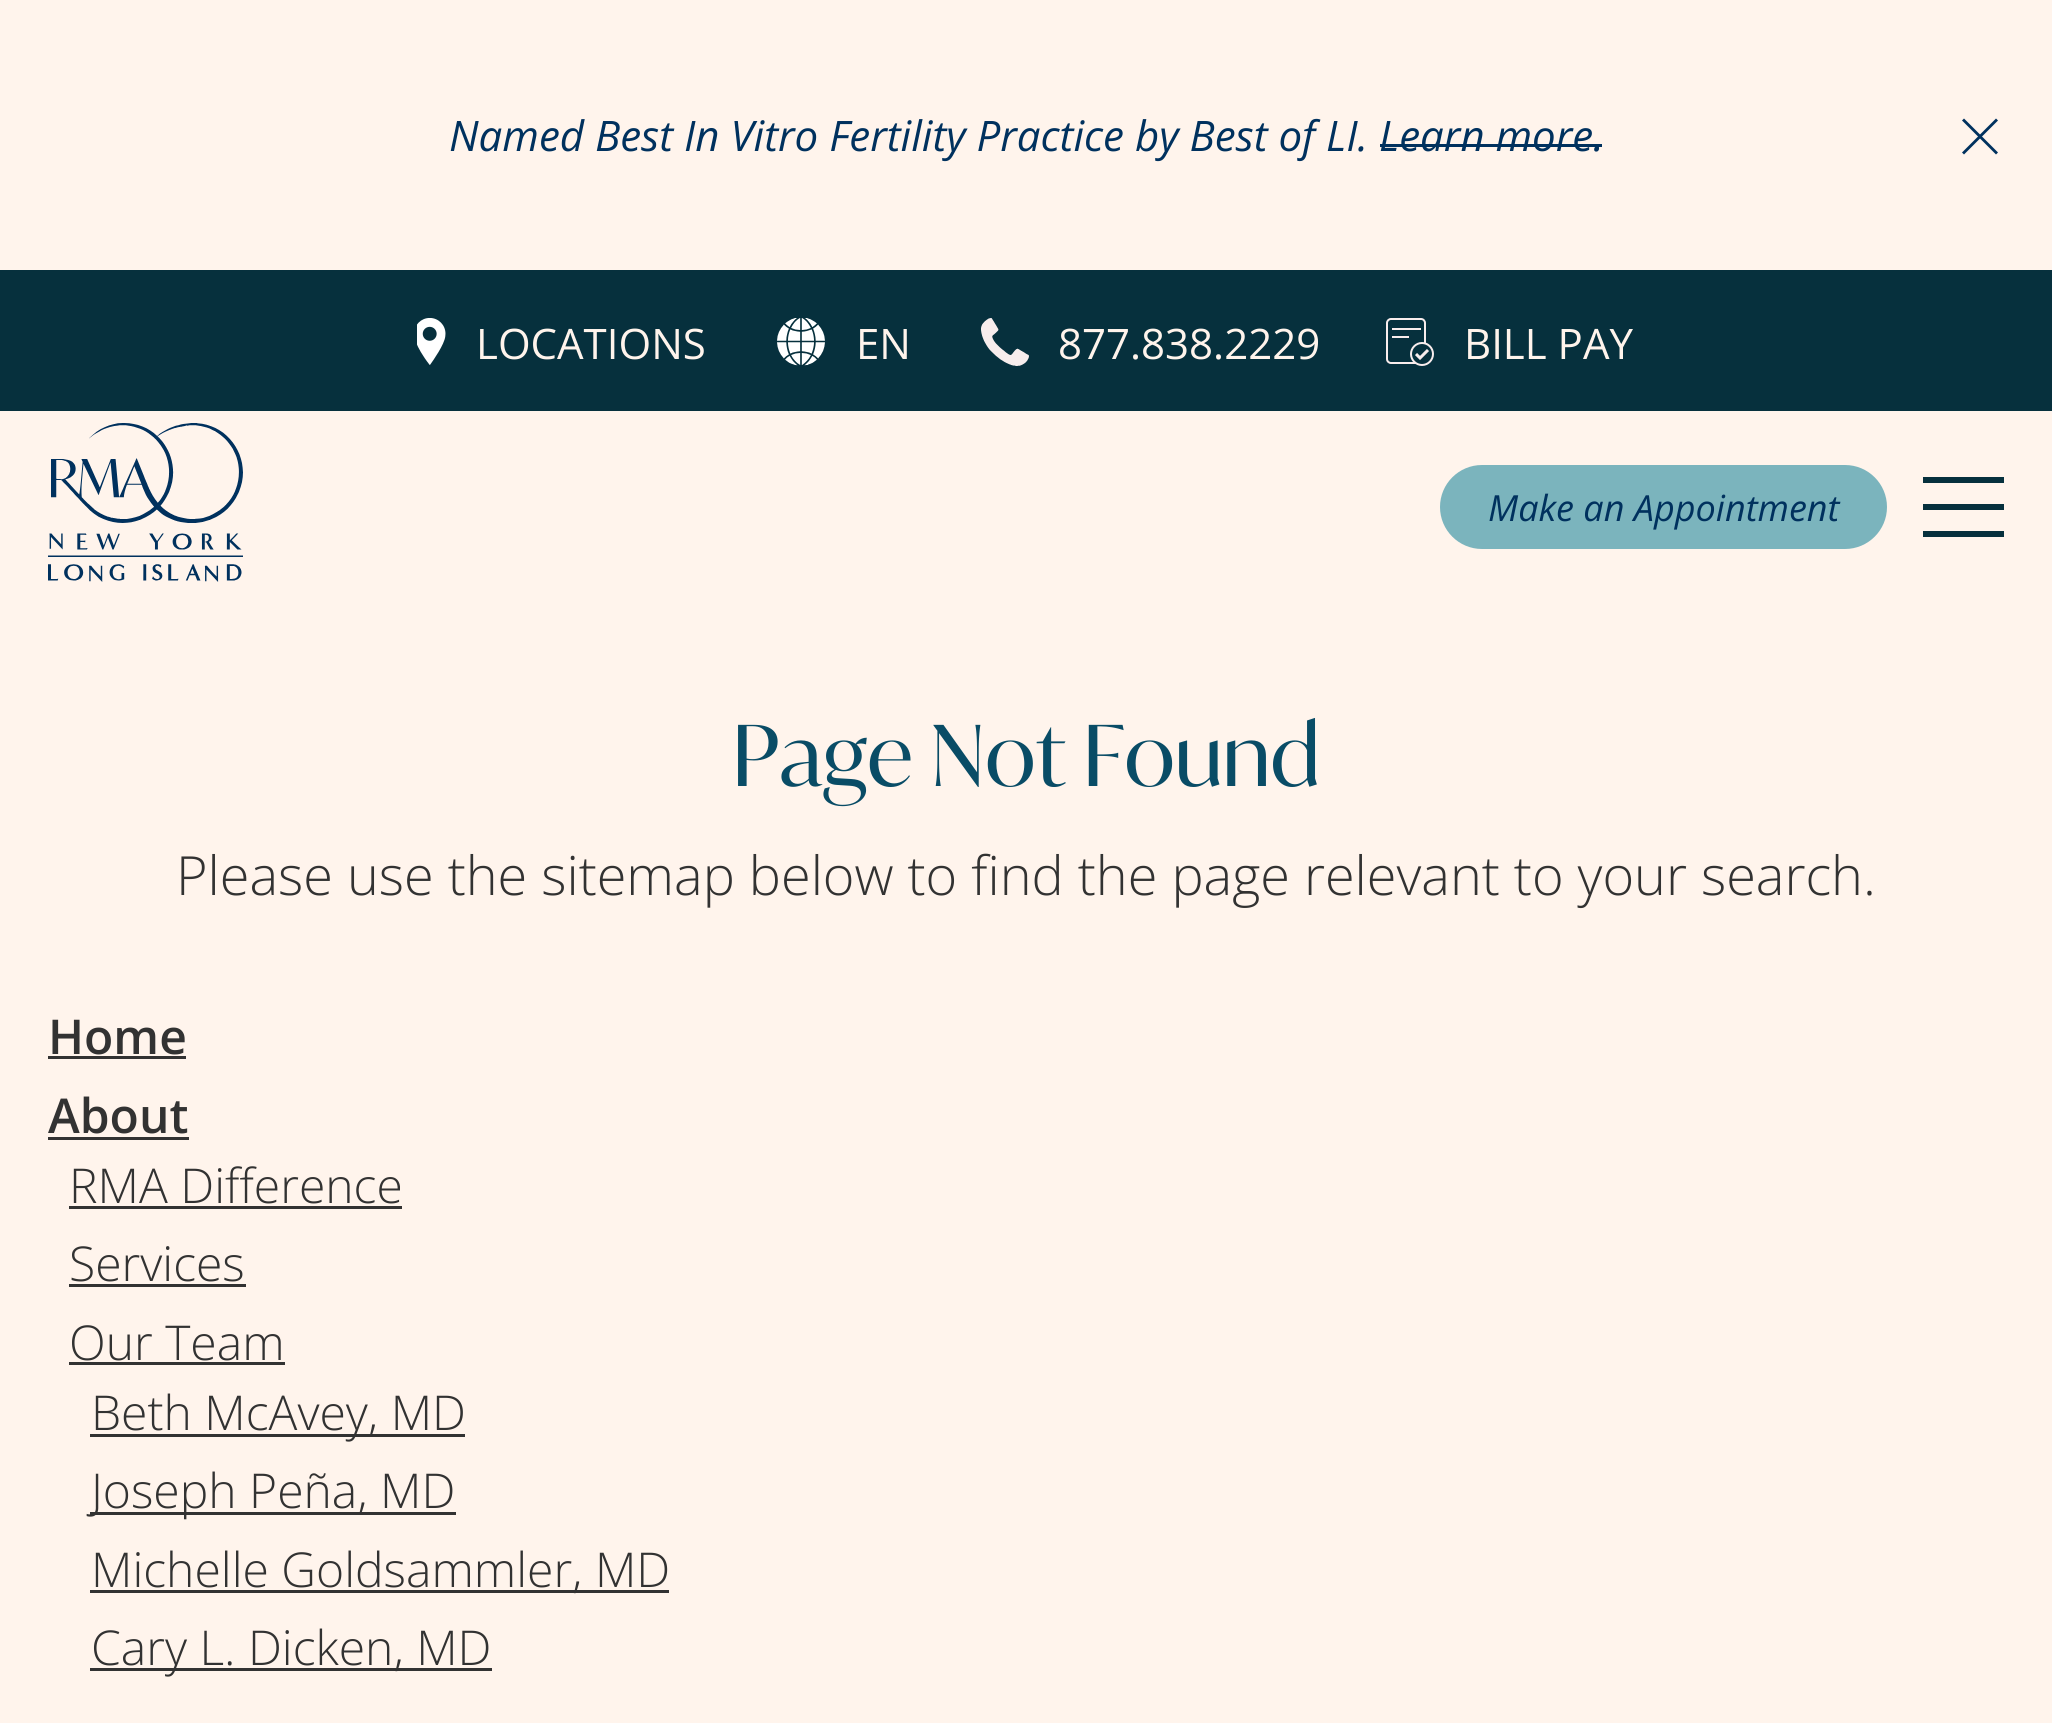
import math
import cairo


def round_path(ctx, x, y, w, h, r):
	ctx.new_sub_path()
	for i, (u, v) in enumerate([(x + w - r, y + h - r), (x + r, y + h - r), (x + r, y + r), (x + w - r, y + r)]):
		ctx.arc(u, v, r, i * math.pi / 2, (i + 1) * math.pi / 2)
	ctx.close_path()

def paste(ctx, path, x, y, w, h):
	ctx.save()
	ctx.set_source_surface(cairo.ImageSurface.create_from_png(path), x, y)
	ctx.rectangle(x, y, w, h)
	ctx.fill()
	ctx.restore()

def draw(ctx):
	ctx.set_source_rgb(1, 0.957, 0.922)
	ctx.paint()
	ctx.select_font_face('Open Sans', cairo.FONT_SLANT_ITALIC)
	ctx.set_font_size(42)
	ctx.set_source_rgb(0, 0.192, 0.369)
	ctx.move_to(449, 151)
	ctx.show_text('Named Best In Vitro Fertility Practice by Best of LI.')
	ctx.rectangle(1380, 144, 222, 3)
	ctx.fill()
	ctx.move_to(1379, 151)
	ctx.show_text('Learn more.')
	ctx.new_path()
	ctx.move_to(1964, 118.5)
	ctx.line_to(1998, 152.5)
	ctx.line_to(1996, 154.5)
	ctx.line_to(1962, 120.5)
	ctx.close_path()
	ctx.fill()
	ctx.new_path()
	ctx.move_to(1962, 152.5)
	ctx.line_to(1996, 118.5)
	ctx.line_to(1998, 120.5)
	ctx.line_to(1964, 154.5)
	ctx.close_path()
	ctx.fill()
	ctx.set_source_rgb(0.024, 0.188, 0.239)
	ctx.rectangle(0, 270, 2052, 141)
	ctx.fill()
	paste(ctx, 'media/1.png', 417, 318, 29, 47)
	ctx.select_font_face('Open Sans')
	ctx.set_source_rgb(1, 0.957, 0.922)
	ctx.move_to(476, 359)
	ctx.show_text('LOCATIONS')
	paste(ctx, 'media/2.png', 777, 318, 48, 48)
	ctx.move_to(856, 359)
	ctx.show_text('EN')
	paste(ctx, 'media/3.png', 981, 318, 48, 48)
	ctx.move_to(1058, 359)
	ctx.show_text('877.838.2229')
	ctx.set_source_rgb(0.969, 0.929, 0.929)
	ctx.rectangle(1392, 328, 29, 2)
	ctx.fill()
	ctx.rectangle(1392, 336, 17, 2)
	ctx.fill()
	round_path(ctx, 1387, 319, 38, 44, 4)
	ctx.stroke()
	ctx.set_source_rgb(0.024, 0.188, 0.239)
	ctx.arc(1422, 354, 11, 0, 2 * math.pi)
	ctx.fill_preserve()
	ctx.set_source_rgb(0.969, 0.929, 0.929)
	ctx.stroke()
	ctx.new_path()
	ctx.move_to(1416, 354)
	ctx.line_to(1420, 358)
	ctx.line_to(1428, 350)
	ctx.set_line_width(3)
	ctx.stroke()
	ctx.set_source_rgb(1, 0.957, 0.922)
	ctx.move_to(1464, 359)
	ctx.show_text('BILL PAY')
	paste(ctx, 'media/4.png', 48, 423, 195, 159)
	ctx.set_source_rgb(0.482, 0.706, 0.741)
	round_path(ctx, 1440, 465, 447, 84, 42)
	ctx.fill()
	ctx.select_font_face('Open Sans', cairo.FONT_SLANT_ITALIC)
	ctx.set_font_size(36)
	ctx.set_source_rgb(0, 0.192, 0.369)
	ctx.move_to(1488, 521)
	ctx.show_text('Make an Appointment')
	ctx.set_source_rgb(0.024, 0.188, 0.239)
	ctx.rectangle(1923, 531, 81, 6)
	ctx.rectangle(1923, 477, 81, 6)
	ctx.rectangle(1923, 504, 81, 6)
	ctx.fill()
	ctx.select_font_face('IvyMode')
	ctx.set_font_size(84)
	ctx.set_source_rgb(0.039, 0.298, 0.4)
	ctx.move_to(732, 786)
	ctx.show_text('Page Not Found')
	ctx.select_font_face('Open Sans Light')
	ctx.set_font_size(54)
	ctx.set_source_rgb(0.196, 0.196, 0.196)
	ctx.move_to(176, 895)
	ctx.show_text('Please use the sitemap below to find the page relevant to your search.')
	ctx.select_font_face('Open Sans SemiBold')
	ctx.set_font_size(48)
	ctx.move_to(48, 1054)
	ctx.show_text('Home')
	ctx.rectangle(48, 1056, 138, 3)
	ctx.fill()
	ctx.move_to(48, 1133)
	ctx.show_text('About')
	ctx.rectangle(48, 1137, 141, 3)
	ctx.fill()
	ctx.select_font_face('Open Sans Light')
	ctx.move_to(69, 1203)
	ctx.show_text('RMA Difference')
	ctx.rectangle(69, 1206, 333, 3)
	ctx.fill()
	ctx.move_to(69, 1281)
	ctx.show_text('Services')
	ctx.rectangle(69, 1284, 177, 3)
	ctx.fill()
	ctx.move_to(69, 1360)
	ctx.show_text('Our Team')
	ctx.rectangle(69, 1362, 216, 3)
	ctx.fill()
	ctx.rectangle(90, 1434, 375, 3)
	ctx.fill()
	ctx.move_to(91, 1430)
	ctx.show_text('Beth McAvey, MD')
	ctx.rectangle(90, 1512, 366, 3)
	ctx.fill()
	ctx.move_to(91, 1508)
	ctx.show_text('Joseph Peña, MD')
	ctx.rectangle(90, 1590, 579, 3)
	ctx.fill()
	ctx.move_to(91, 1587)
	ctx.show_text('Michelle Goldsammler, MD')
	ctx.rectangle(90, 1668, 402, 3)
	ctx.fill()
	ctx.move_to(91, 1665)
	ctx.show_text('Cary L. Dicken, MD')


surface = cairo.ImageSurface(cairo.FORMAT_RGB24, 2052, 1723)
ctx = cairo.Context(surface)
options = cairo.FontOptions()
options.set_hint_metrics(cairo.HINT_METRICS_OFF)
options.set_hint_style(cairo.HINT_STYLE_NONE)
ctx.set_font_options(options)
ctx.set_miter_limit(4)
draw(ctx)
surface.write_to_png('image.png')
